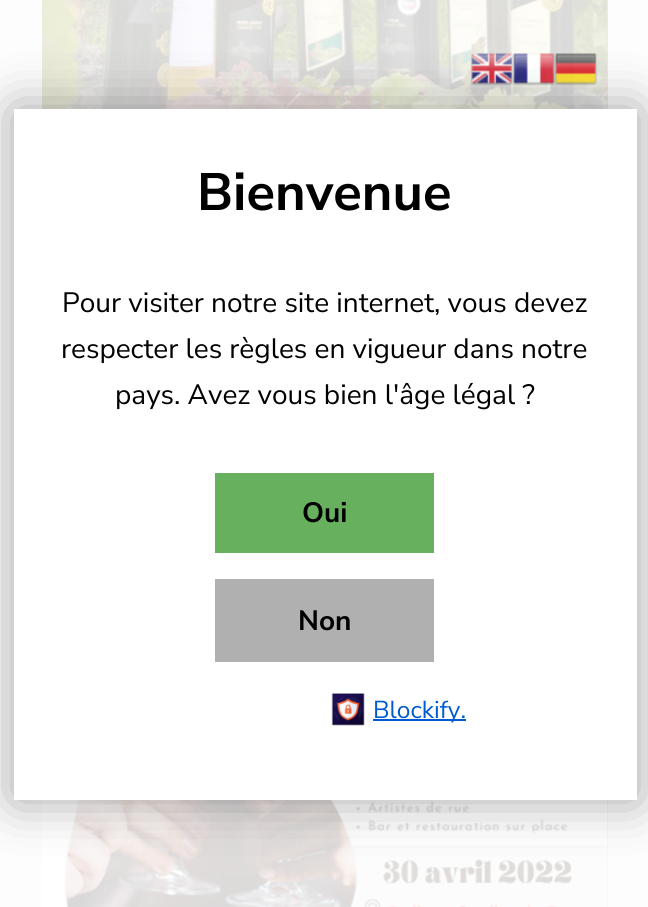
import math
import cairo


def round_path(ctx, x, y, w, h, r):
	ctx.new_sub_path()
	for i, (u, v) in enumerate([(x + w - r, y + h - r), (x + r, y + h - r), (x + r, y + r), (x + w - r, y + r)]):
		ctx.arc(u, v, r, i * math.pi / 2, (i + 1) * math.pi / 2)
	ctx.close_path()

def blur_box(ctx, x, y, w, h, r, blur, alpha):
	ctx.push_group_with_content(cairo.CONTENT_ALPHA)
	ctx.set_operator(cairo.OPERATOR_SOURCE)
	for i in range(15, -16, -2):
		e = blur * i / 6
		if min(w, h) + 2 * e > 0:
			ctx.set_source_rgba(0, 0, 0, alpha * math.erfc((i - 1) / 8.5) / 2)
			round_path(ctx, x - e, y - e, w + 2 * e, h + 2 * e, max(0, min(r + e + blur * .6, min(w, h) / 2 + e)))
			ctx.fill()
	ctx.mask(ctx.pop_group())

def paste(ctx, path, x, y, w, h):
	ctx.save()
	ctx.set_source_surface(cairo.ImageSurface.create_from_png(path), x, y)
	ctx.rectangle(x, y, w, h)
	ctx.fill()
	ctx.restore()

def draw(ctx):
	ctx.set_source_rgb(0.992, 0.992, 0.992)
	ctx.paint()
	ctx.set_source_rgb(0.914, 0.918, 0.894)
	ctx.rectangle(607, 0, 1, 109)
	ctx.fill()
	paste(ctx, 'media/1.png', 42, 0, 566, 109)
	ctx.set_source_rgb(0.973, 0.969, 0.969)
	ctx.rectangle(607, 800, 1, 107)
	ctx.fill()
	paste(ctx, 'media/2.png', 42, 800, 565, 107)
	ctx.set_source_rgb(0, 0, 0)
	blur_box(ctx, 14, 109, 623, 691, 0, 26, 0.35)
	paste(ctx, 'media/3.png', 470, 53, 43, 33)
	paste(ctx, 'media/4.png', 512, 53, 43, 33)
	paste(ctx, 'media/5.png', 554, 53, 43, 33)
	ctx.set_source_rgb(1, 1, 1)
	ctx.rectangle(14, 109, 623, 691)
	ctx.fill()
	ctx.select_font_face('Nunito Sans', cairo.FONT_SLANT_NORMAL, cairo.FONT_WEIGHT_BOLD)
	ctx.set_font_size(52.5)
	ctx.set_source_rgb(0, 0, 0)
	ctx.move_to(197, 210)
	ctx.show_text('Bienvenue')
	ctx.select_font_face('Nunito Sans')
	ctx.set_font_size(28)
	for x, y, s in [
		(62, 312, 'Pour visiter notre site internet, vous devez'),
		(61, 358, 'respecter les règles en vigueur dans notre'),
		(115, 404, 'pays. Avez vous bien l\'âge légal ?'),
	]:
		ctx.move_to(x, y)
		ctx.show_text(s)
	ctx.set_source_rgb(0.4, 0.69, 0.369)
	ctx.rectangle(215, 473, 219, 80)
	ctx.fill()
	ctx.select_font_face('Nunito Sans', cairo.FONT_SLANT_NORMAL, cairo.FONT_WEIGHT_BOLD)
	ctx.set_source_rgb(0, 0, 0)
	ctx.move_to(302, 522)
	ctx.show_text('Oui')
	ctx.set_source_rgb(0.69, 0.69, 0.69)
	ctx.rectangle(215, 579, 219, 83)
	ctx.fill()
	ctx.set_source_rgb(0, 0, 0)
	ctx.move_to(298, 630)
	ctx.show_text('Non')
	paste(ctx, 'media/6.png', 331, 693, 34, 33)
	ctx.set_source_rgb(0, 0.357, 0.827)
	ctx.rectangle(373, 719, 93, 2)
	ctx.fill()
	ctx.select_font_face('Nunito Sans')
	ctx.set_font_size(24.5)
	ctx.move_to(373, 718)
	ctx.show_text('Blockify.')


surface = cairo.ImageSurface(cairo.FORMAT_RGB24, 648, 907)
ctx = cairo.Context(surface)
options = cairo.FontOptions()
options.set_hint_metrics(cairo.HINT_METRICS_OFF)
options.set_hint_style(cairo.HINT_STYLE_NONE)
ctx.set_font_options(options)
ctx.set_miter_limit(4)
draw(ctx)
surface.write_to_png('image.png')
